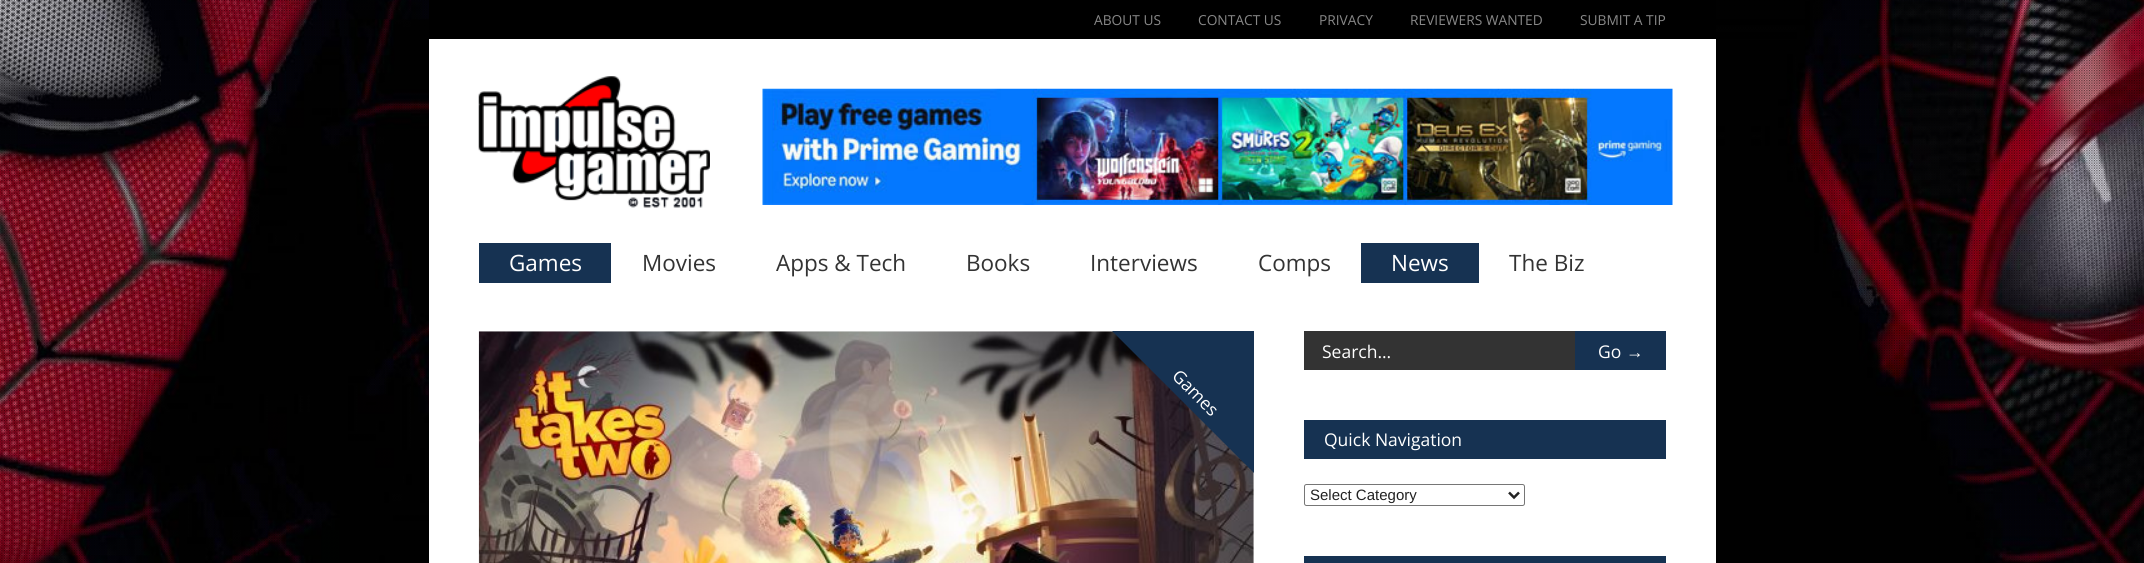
import math
import cairo


def round_path(ctx, x, y, w, h, r):
	ctx.new_sub_path()
	for i, (u, v) in enumerate([(x + w - r, y + h - r), (x + r, y + h - r), (x + r, y + r), (x + w - r, y + r)]):
		ctx.arc(u, v, r, i * math.pi / 2, (i + 1) * math.pi / 2)
	ctx.close_path()

def blur_box(ctx, x, y, w, h, r, blur, alpha):
	ctx.push_group_with_content(cairo.CONTENT_ALPHA)
	ctx.set_operator(cairo.OPERATOR_SOURCE)
	for i in range(15, -16, -2):
		e = blur * i / 6
		if min(w, h) + 2 * e > 0:
			ctx.set_source_rgba(0, 0, 0, alpha * math.erfc((i - 1) / 8.5) / 2)
			round_path(ctx, x - e, y - e, w + 2 * e, h + 2 * e, max(0, min(r + e + blur * .6, min(w, h) / 2 + e)))
			ctx.fill()
	ctx.mask(ctx.pop_group())

def paste(ctx, path, x, y, w, h):
	ctx.save()
	ctx.set_source_surface(cairo.ImageSurface.create_from_png(path), x, y)
	ctx.rectangle(x, y, w, h)
	ctx.fill()
	ctx.restore()

def draw(ctx):
	ctx.set_source_rgb(1, 1, 1)
	ctx.paint()
	paste(ctx, 'media/1.png', 0, 0, 2144, 563)
	paste(ctx, 'media/2.png', 0, 0, 2144, 563)
	ctx.set_source_rgb(0, 0, 0)
	ctx.rectangle(429, 0, 1287, 39)
	ctx.fill()
	ctx.set_source_rgb(0, 0, 0)
	blur_box(ctx, 429, 39, 1287, 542, 0, 6, 0.1)
	ctx.select_font_face('Open Sans')
	ctx.set_font_size(13.75)
	ctx.set_source_rgb(0.533, 0.533, 0.533)
	for x, y, s in [
		(1094, 25, 'ABOUT US'),
		(1198, 25, 'CONTACT US'),
		(1319, 25, 'PRIVACY'),
		(1410, 25, 'REVIEWERS WANTED'),
		(1580, 25, 'SUBMIT A TIP'),
	]:
		ctx.move_to(x, y)
		ctx.show_text(s)
	ctx.set_source_rgb(1, 1, 1)
	ctx.rectangle(429, 39, 1287, 524)
	ctx.fill()
	paste(ctx, 'media/3.png', 478, 76, 232, 132)
	paste(ctx, 'media/4.png', 762, 88, 911, 117)
	ctx.set_source_rgb(0.086, 0.196, 0.322)
	ctx.rectangle(479, 243, 132, 40)
	ctx.fill()
	ctx.set_font_size(22.5)
	ctx.set_source_rgb(1, 1, 1)
	ctx.move_to(509, 271)
	ctx.show_text('Games')
	ctx.set_source_rgb(0.2, 0.2, 0.2)
	for x, y, s in [
		(642, 271, 'Movies'),
		(776, 271, 'Apps & Tech'),
		(966, 271, 'Books'),
		(1090, 271, 'Interviews'),
		(1258, 271, 'Comps'),
	]:
		ctx.move_to(x, y)
		ctx.show_text(s)
	ctx.set_source_rgb(0.086, 0.196, 0.322)
	ctx.rectangle(1361, 243, 118, 40)
	ctx.fill()
	ctx.set_source_rgb(1, 1, 1)
	ctx.move_to(1391, 271)
	ctx.show_text('News')
	ctx.set_source_rgb(0.2, 0.2, 0.2)
	ctx.move_to(1509, 271)
	ctx.show_text('The Biz')
	paste(ctx, 'media/5.png', 478, 331, 776, 232)
	ctx.save()
	ctx.rectangle(479, 331, 775, 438)
	ctx.clip()
	ctx.set_source_rgb(0.086, 0.196, 0.322)
	ctx.new_path()
	ctx.move_to(1178, 233)
	ctx.line_to(1355, 410)
	ctx.line_to(1273, 492)
	ctx.line_to(1096, 315)
	ctx.close_path()
	ctx.fill()
	ctx.restore()
	ctx.set_font_size(17.5)
	ctx.set_source_rgb(1, 1, 1)
	ctx.save()
	ctx.translate(1171, 377)
	ctx.rotate(45 * math.pi / 180)
	ctx.move_to(0, 0)
	ctx.show_text('Games')
	ctx.restore()
	ctx.set_source_rgb(0.2, 0.2, 0.2)
	ctx.rectangle(1304, 331, 271, 39)
	ctx.fill()
	ctx.set_source_rgb(1, 1, 1)
	ctx.move_to(1322, 358)
	ctx.show_text('Search...')
	ctx.set_source_rgb(0.086, 0.196, 0.322)
	ctx.rectangle(1575, 331, 91, 39)
	ctx.fill()
	ctx.set_source_rgb(1, 1, 1)
	ctx.move_to(1598, 358)
	ctx.show_text('Go')
	ctx.select_font_face('Liberation Sans')
	ctx.move_to(1626, 358)
	ctx.show_text('→')
	ctx.set_source_rgb(0.086, 0.196, 0.322)
	ctx.rectangle(1304, 420, 362, 39)
	ctx.fill()
	ctx.select_font_face('Open Sans')
	ctx.set_source_rgb(1, 1, 1)
	ctx.move_to(1324, 446)
	ctx.show_text('Quick Navigation')
	round_path(ctx, 1304.5, 484.5, 220, 21, 2)
	ctx.set_source_rgb(0.463, 0.463, 0.463)
	ctx.set_line_width(1)
	ctx.stroke()
	ctx.new_path()
	ctx.move_to(1509, 492.5)
	ctx.line_to(1514, 497.5)
	ctx.line_to(1519, 492.5)
	ctx.set_source_rgb(0.133, 0.133, 0.133)
	ctx.set_line_width(2.5)
	ctx.stroke()
	ctx.select_font_face('Liberation Sans')
	ctx.set_font_size(15)
	ctx.move_to(1310, 500)
	ctx.show_text('Select Category')
	ctx.set_source_rgb(0.086, 0.196, 0.322)
	ctx.rectangle(1304, 556, 362, 7)
	ctx.fill()


surface = cairo.ImageSurface(cairo.FORMAT_RGB24, 2144, 563)
ctx = cairo.Context(surface)
options = cairo.FontOptions()
options.set_hint_metrics(cairo.HINT_METRICS_OFF)
options.set_hint_style(cairo.HINT_STYLE_NONE)
ctx.set_font_options(options)
ctx.set_miter_limit(4)
draw(ctx)
surface.write_to_png('image.png')
